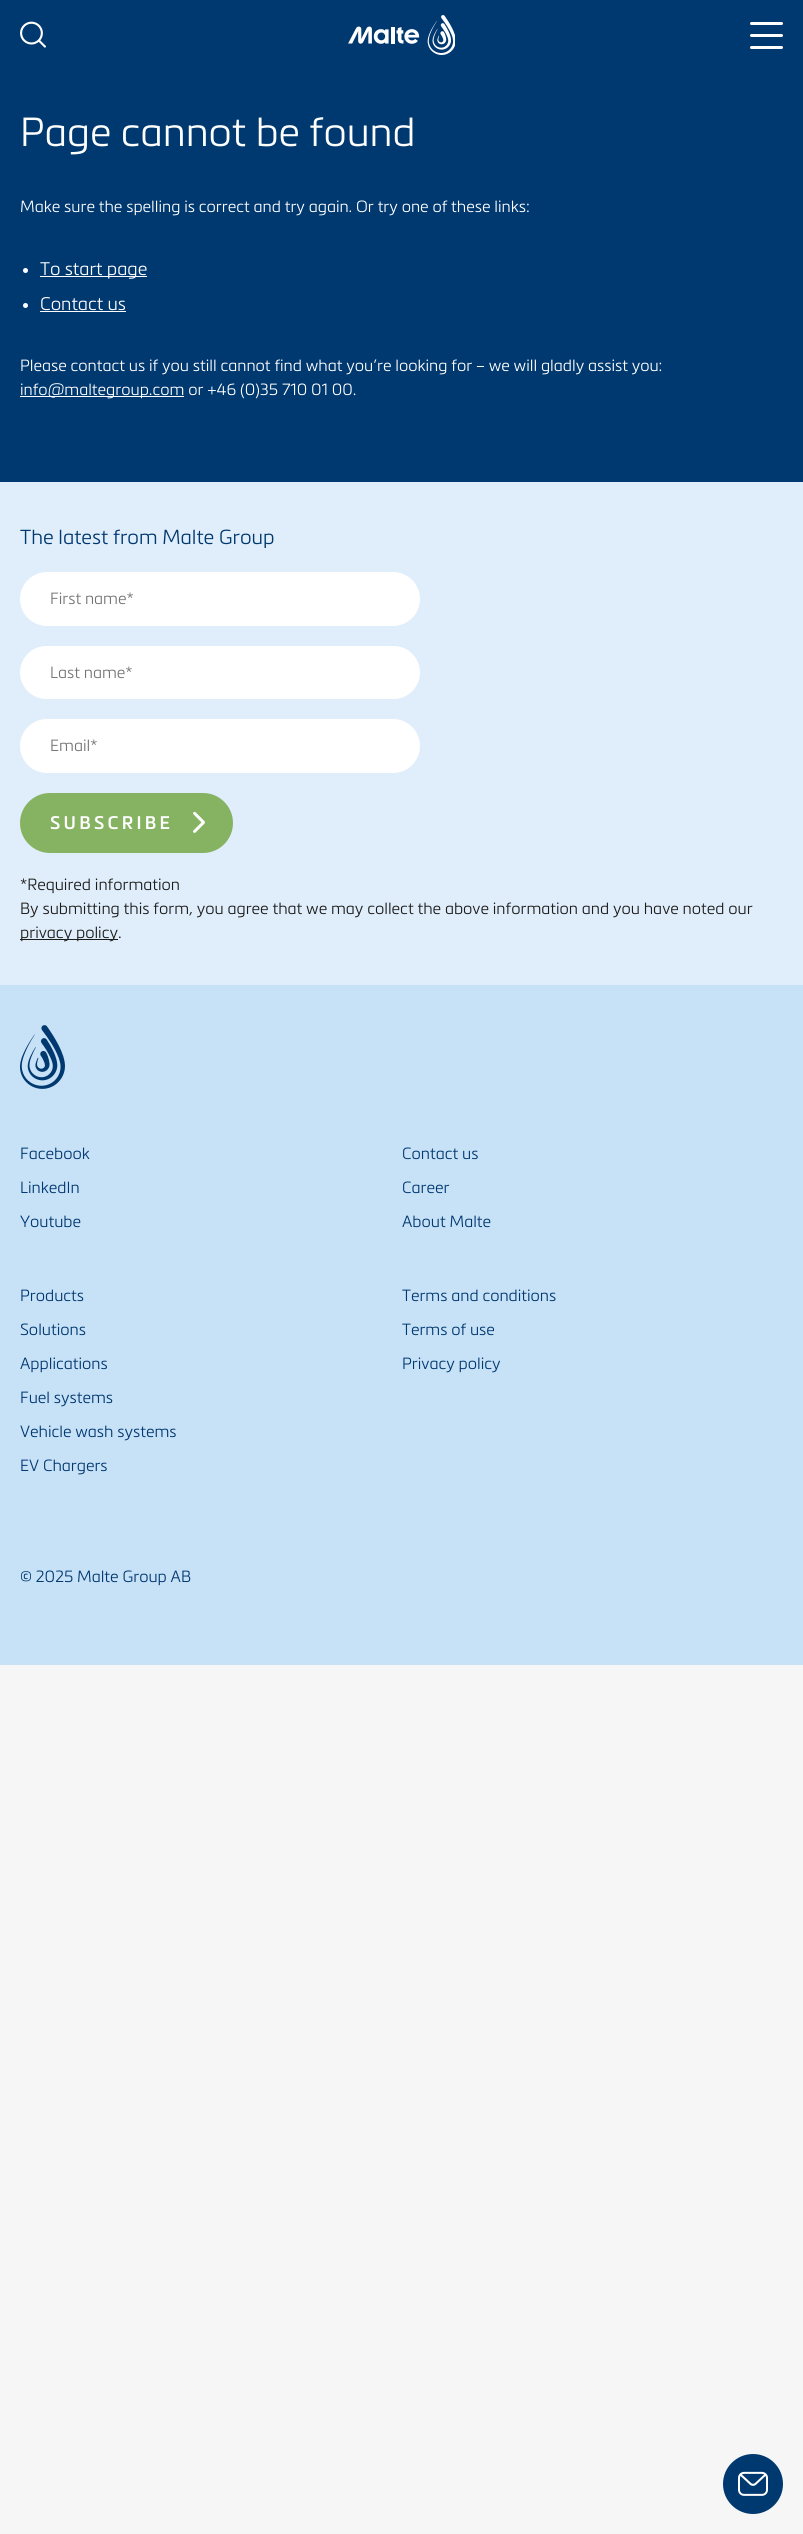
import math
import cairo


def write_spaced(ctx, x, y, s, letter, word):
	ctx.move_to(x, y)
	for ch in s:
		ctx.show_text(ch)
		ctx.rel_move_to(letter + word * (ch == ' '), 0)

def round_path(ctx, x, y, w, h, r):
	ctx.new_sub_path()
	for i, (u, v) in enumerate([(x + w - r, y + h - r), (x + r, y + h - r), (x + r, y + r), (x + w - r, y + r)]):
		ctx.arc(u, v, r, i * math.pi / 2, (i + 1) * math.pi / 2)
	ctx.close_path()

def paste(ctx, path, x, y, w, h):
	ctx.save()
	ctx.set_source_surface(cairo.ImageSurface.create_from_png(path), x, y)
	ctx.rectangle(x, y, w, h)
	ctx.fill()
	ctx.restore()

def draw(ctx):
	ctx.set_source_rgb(0.961, 0.961, 0.961)
	ctx.paint()
	ctx.set_source_rgb(0, 0.22, 0.439)
	ctx.rectangle(0, 0, 803, 482)
	ctx.fill()
	paste(ctx, 'media/1.png', 20, 21, 26, 27)
	paste(ctx, 'media/2.png', 348, 15, 107, 40)
	ctx.set_source_rgb(1, 1, 1)
	round_path(ctx, 750, 22, 33, 3, 1.5)
	ctx.fill()
	round_path(ctx, 750, 34, 33, 3, 1.5)
	ctx.fill()
	round_path(ctx, 750, 46, 33, 3, 1.5)
	ctx.fill()
	ctx.select_font_face('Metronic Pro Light')
	ctx.set_font_size(40)
	ctx.move_to(20, 146)
	ctx.show_text('Page cannot be found')
	ctx.set_font_size(16)
	ctx.move_to(20, 212)
	ctx.show_text('Make sure the spelling is correct and try again. Or try one of these links:')
	ctx.new_path()
	ctx.arc(25.5, 270.5, 2.5, 0, 2 * math.pi)
	ctx.fill()
	ctx.rectangle(40, 276, 107, 1)
	ctx.fill()
	ctx.set_font_size(18)
	ctx.move_to(40, 275)
	ctx.show_text('To start page')
	ctx.new_path()
	ctx.arc(25.5, 305.5, 2.5, 0, 2 * math.pi)
	ctx.fill()
	ctx.move_to(40, 310)
	ctx.show_text('Contact us')
	ctx.rectangle(40, 311, 86, 1)
	ctx.fill()
	ctx.set_font_size(16)
	ctx.move_to(20, 371)
	ctx.show_text('Please contact us if you still cannot find what you’re looking for – we will gladly assist you:')
	ctx.rectangle(20, 396, 164, 1)
	ctx.fill()
	ctx.move_to(20, 395)
	ctx.show_text('info@maltegroup.com or +46 (0)35 710 01 00.')
	ctx.set_source_rgb(0.878, 0.929, 0.98)
	ctx.rectangle(0, 482, 803, 503)
	ctx.fill()
	ctx.set_font_size(20)
	ctx.set_source_rgb(0, 0.22, 0.439)
	ctx.move_to(20, 544)
	ctx.show_text('The latest from Malte Group')
	ctx.set_source_rgb(1, 1, 1)
	round_path(ctx, 20, 572, 400, 54, 27)
	ctx.fill()
	ctx.set_font_size(16)
	ctx.set_source_rgb(0.459, 0.459, 0.459)
	ctx.move_to(50, 604)
	ctx.show_text('First name*')
	ctx.set_source_rgb(1, 1, 1)
	round_path(ctx, 20, 646, 400, 53, 26.5)
	ctx.fill()
	ctx.set_source_rgb(0.459, 0.459, 0.459)
	ctx.move_to(50, 678)
	ctx.show_text('Last name*')
	ctx.set_source_rgb(1, 1, 1)
	round_path(ctx, 20, 719, 400, 54, 27)
	ctx.fill()
	ctx.set_source_rgb(0.459, 0.459, 0.459)
	ctx.move_to(50, 751)
	ctx.show_text('Email*')
	ctx.set_source_rgb(0.525, 0.702, 0.384)
	round_path(ctx, 20, 793, 213, 60, 30)
	ctx.fill()
	ctx.select_font_face('Metronic Pro SemiBold')
	ctx.set_font_size(18)
	ctx.set_source_rgb(1, 1, 1)
	write_spaced(ctx, 50, 829, 'SUBSCRIBE', 3.25, 0)
	paste(ctx, 'media/3.png', 193, 811, 12, 22)
	ctx.select_font_face('Metronic Pro Light')
	ctx.set_font_size(16)
	ctx.set_source_rgb(0.11, 0.11, 0.106)
	ctx.move_to(20, 890)
	ctx.show_text('*Required information')
	ctx.move_to(20, 914)
	ctx.show_text('By submitting this form, you agree that we may collect the above information and you have noted our')
	ctx.rectangle(20, 939, 98, 1)
	ctx.fill()
	ctx.move_to(20, 938)
	ctx.show_text('privacy policy.')
	ctx.set_source_rgb(0.78, 0.882, 0.965)
	ctx.rectangle(0, 985, 803, 680)
	ctx.fill()
	paste(ctx, 'media/4.png', 20, 1025, 45, 64)
	ctx.set_source_rgb(0, 0.22, 0.439)
	for x, y, s in [
		(20, 1159, 'Facebook'),
		(20, 1193, 'LinkedIn'),
		(20, 1227, 'Youtube'),
		(402, 1159, 'Contact us'),
		(402, 1193, 'Career'),
		(402, 1227, 'About Malte'),
		(20, 1301, 'Products'),
		(20, 1335, 'Solutions'),
		(20, 1369, 'Applications'),
		(20, 1403, 'Fuel systems'),
		(20, 1437, 'Vehicle wash systems'),
		(20, 1471, 'EV Chargers'),
		(402, 1301, 'Terms and conditions'),
		(402, 1335, 'Terms of use'),
		(402, 1369, 'Privacy policy'),
		(20, 1582, '© 2025 Malte Group AB'),
	]:
		ctx.move_to(x, y)
		ctx.show_text(s)
	ctx.new_path()
	ctx.arc(753, 2484, 30, 0, 2 * math.pi)
	ctx.fill()
	paste(ctx, 'media/5.png', 738, 2471, 30, 25)


surface = cairo.ImageSurface(cairo.FORMAT_RGB24, 803, 2534)
ctx = cairo.Context(surface)
options = cairo.FontOptions()
options.set_hint_metrics(cairo.HINT_METRICS_OFF)
options.set_hint_style(cairo.HINT_STYLE_NONE)
ctx.set_font_options(options)
ctx.set_miter_limit(4)
draw(ctx)
surface.write_to_png('image.png')
